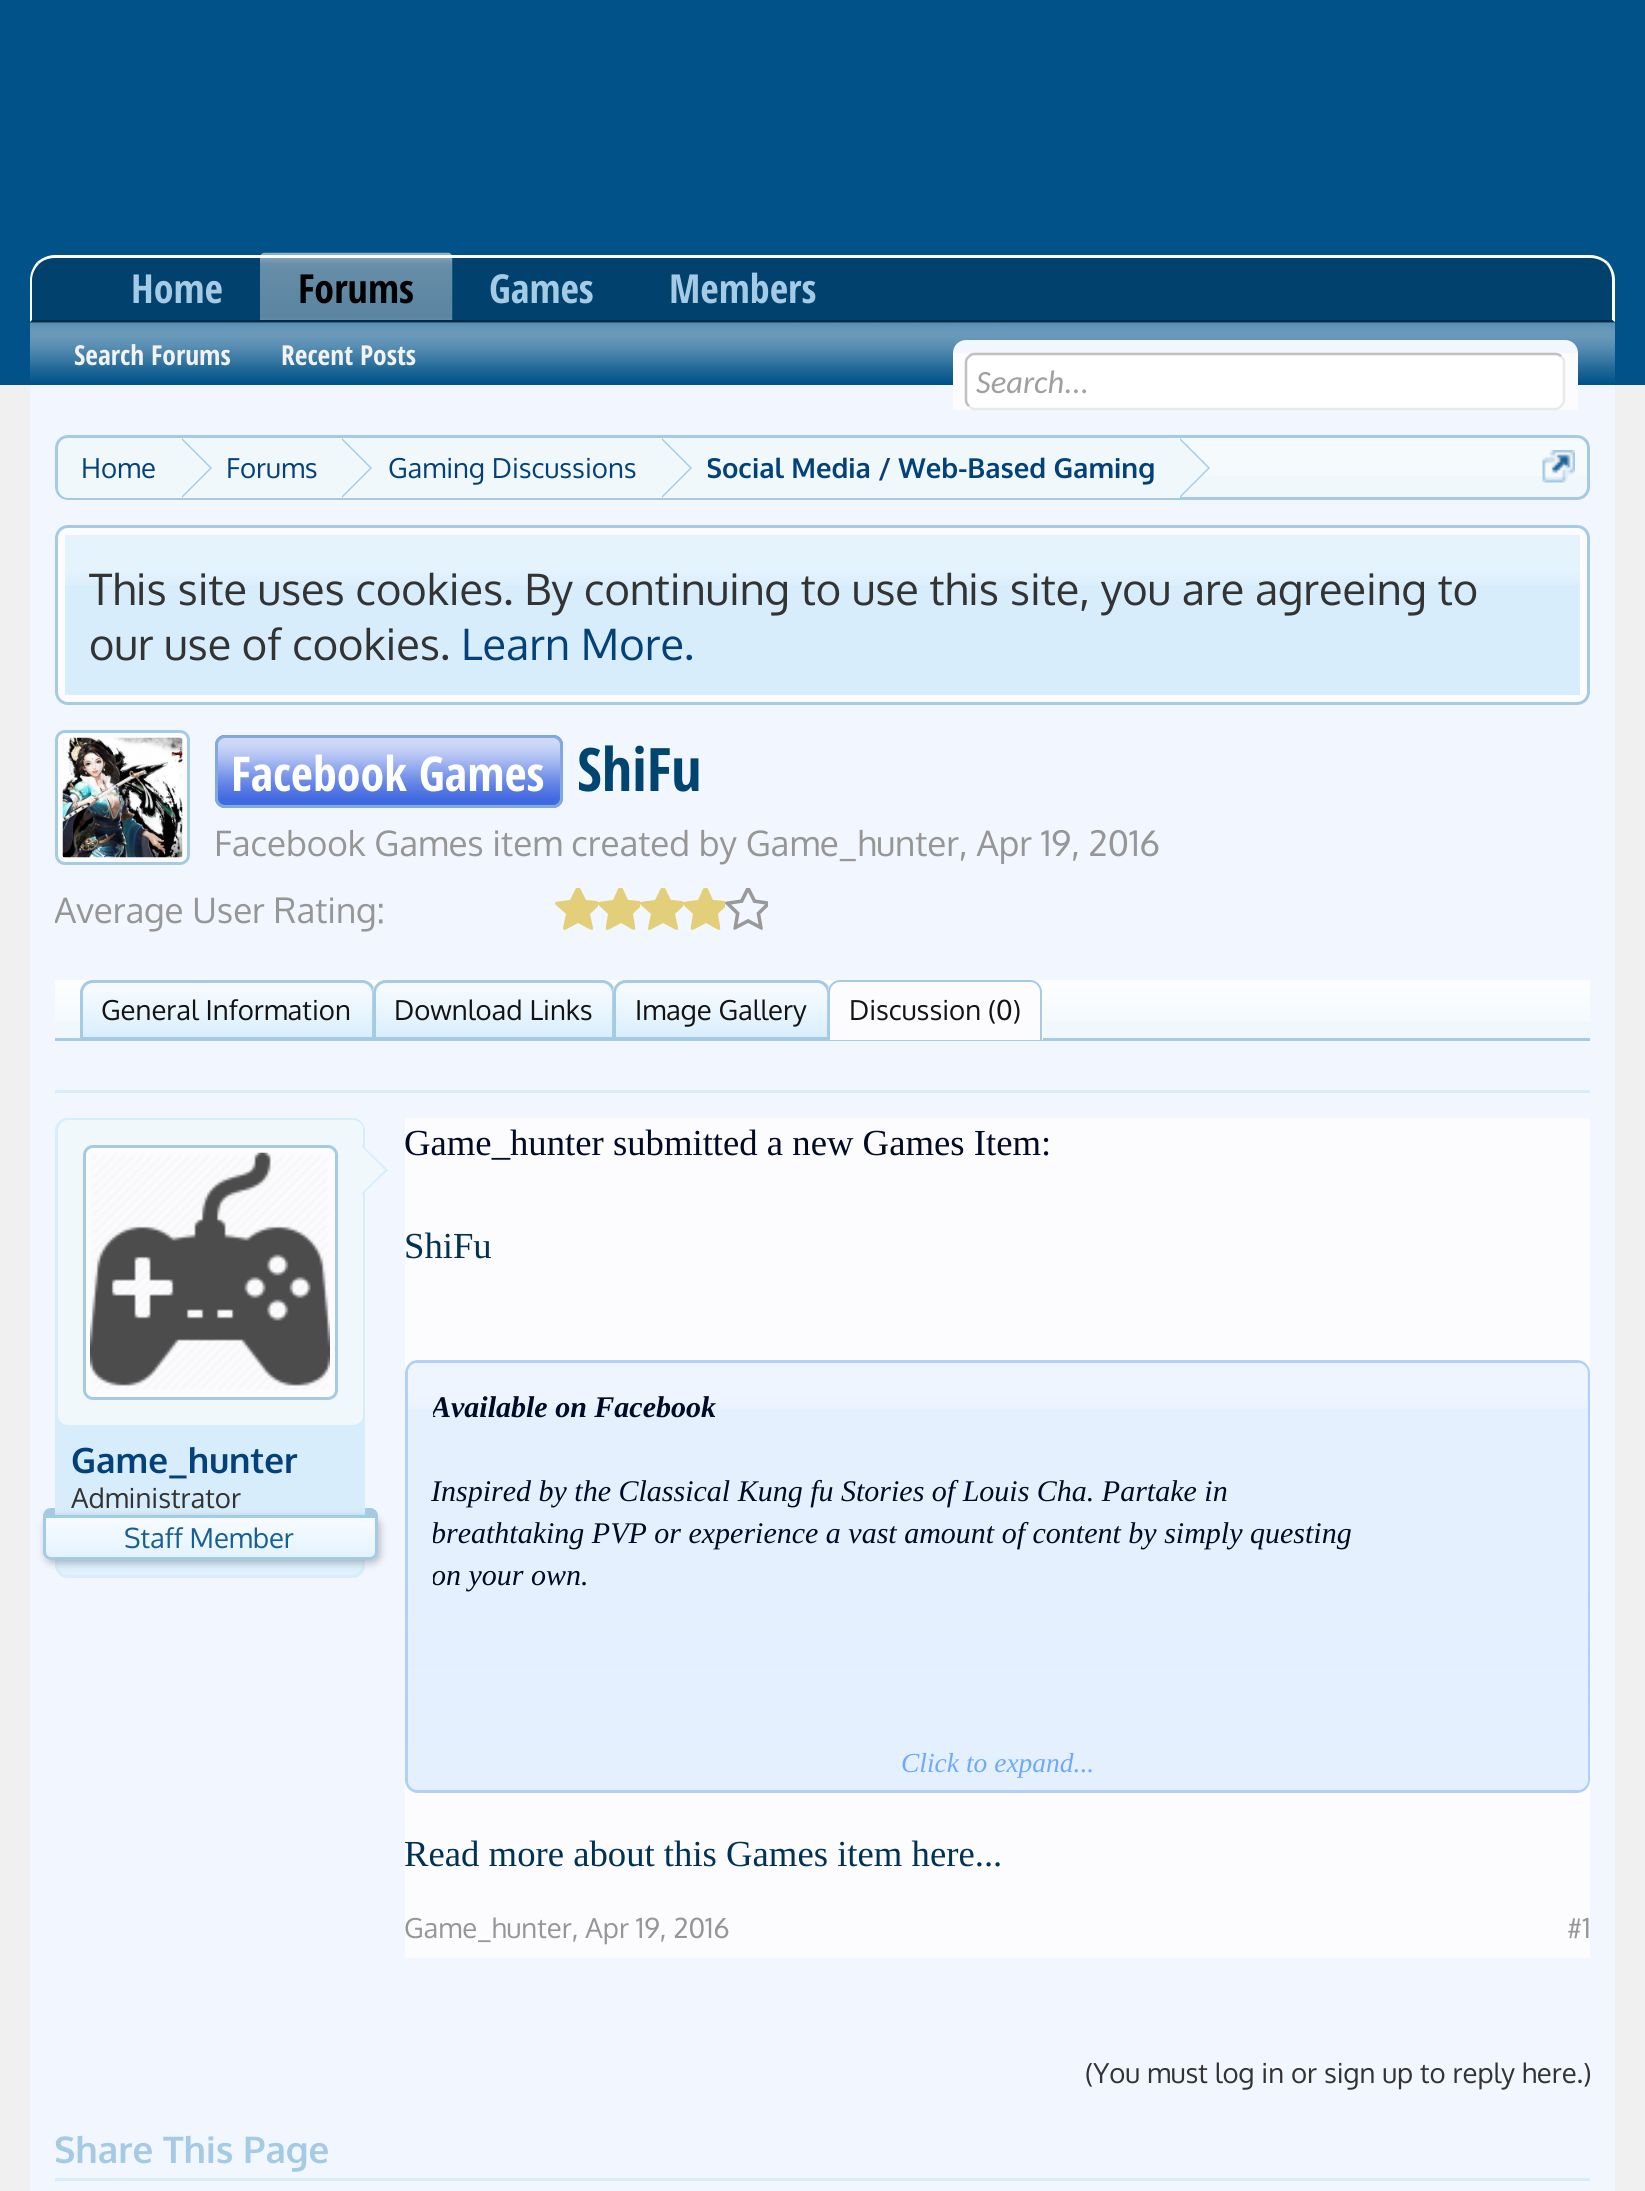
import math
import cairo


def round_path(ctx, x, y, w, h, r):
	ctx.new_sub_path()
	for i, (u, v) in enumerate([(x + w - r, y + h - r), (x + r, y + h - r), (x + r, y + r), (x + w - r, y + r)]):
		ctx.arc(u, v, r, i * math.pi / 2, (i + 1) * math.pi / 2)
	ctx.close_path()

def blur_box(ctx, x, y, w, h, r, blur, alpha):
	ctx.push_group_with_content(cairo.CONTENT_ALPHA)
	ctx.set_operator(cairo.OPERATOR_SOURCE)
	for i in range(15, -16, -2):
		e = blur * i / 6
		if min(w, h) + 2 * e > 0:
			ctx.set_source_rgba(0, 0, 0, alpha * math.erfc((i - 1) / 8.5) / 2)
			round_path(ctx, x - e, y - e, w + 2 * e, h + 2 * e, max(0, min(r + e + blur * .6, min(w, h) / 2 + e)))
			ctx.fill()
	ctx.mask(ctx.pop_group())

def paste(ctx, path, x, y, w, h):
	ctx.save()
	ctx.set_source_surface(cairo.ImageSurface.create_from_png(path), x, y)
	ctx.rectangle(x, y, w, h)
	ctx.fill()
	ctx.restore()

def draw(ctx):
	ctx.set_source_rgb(0.941, 0.941, 0.941)
	ctx.paint()
	ctx.set_source_rgb(0, 0.322, 0.537)
	ctx.rectangle(0, 0, 1645, 385)
	ctx.fill()
	ctx.set_source_rgb(0, 0.255, 0.427)
	ctx.new_path()
	ctx.move_to(55, 255)
	ctx.line_to(1590, 255)
	ctx.curve_to(1604, 255, 1615, 266, 1615, 280)
	ctx.line_to(1615, 323)
	ctx.line_to(30, 323)
	ctx.line_to(30, 280)
	ctx.curve_to(30, 266, 41, 255, 55, 255)
	ctx.close_path()
	ctx.fill()
	ctx.set_source_rgb(1, 1, 1)
	ctx.new_path()
	ctx.move_to(55, 255)
	ctx.curve_to(48, 255, 42, 258, 37, 262)
	ctx.line_to(39, 264)
	ctx.curve_to(43, 260, 49, 258, 55, 258)
	ctx.line_to(1590, 258)
	ctx.curve_to(1596, 258, 1602, 260, 1606, 264)
	ctx.line_to(1608, 262)
	ctx.curve_to(1603, 258, 1597, 255, 1590, 255)
	ctx.close_path()
	ctx.fill()
	ctx.new_path()
	ctx.move_to(1615, 322)
	ctx.line_to(1615, 280)
	ctx.curve_to(1615, 273, 1612, 267, 1608, 262)
	ctx.line_to(1606, 264)
	ctx.curve_to(1610, 268, 1612, 274, 1612, 280)
	ctx.line_to(1612, 320)
	ctx.close_path()
	ctx.fill()
	ctx.set_source_rgb(0.012, 0.165, 0.275)
	ctx.new_path()
	ctx.move_to(1614, 322)
	ctx.line_to(30, 322)
	ctx.line_to(32, 320)
	ctx.line_to(1612, 320)
	ctx.close_path()
	ctx.fill()
	ctx.set_source_rgb(1, 1, 1)
	ctx.new_path()
	ctx.move_to(30, 280)
	ctx.line_to(30, 322)
	ctx.line_to(32, 320)
	ctx.line_to(32, 280)
	ctx.curve_to(32, 274, 35, 268, 39, 264)
	ctx.line_to(37, 262)
	ctx.curve_to(33, 267, 30, 273, 30, 280)
	ctx.close_path()
	ctx.fill()
	paste(ctx, 'media/1.png', 260, 252, 193, 68)
	ctx.select_font_face('Open Sans Condensed', cairo.FONT_SLANT_NORMAL, cairo.FONT_WEIGHT_BOLD)
	ctx.set_font_size(40)
	ctx.set_source_rgb(0, 0, 0)
	ctx.move_to(298, 303)
	ctx.show_text('Forums')
	paste(ctx, 'media/2.png', 30, 322, 1585, 60)
	ctx.set_font_size(27.5)
	ctx.set_source_rgb(0.949, 0.949, 0.949)
	ctx.move_to(74, 365)
	ctx.show_text('Search Forums')
	ctx.move_to(281, 365)
	ctx.show_text('Recent Posts')
	ctx.set_font_size(40)
	ctx.set_source_rgb(0.647, 0.792, 0.894)
	for x, y, s in [
		(669, 303, 'Members'),
		(131, 303, 'Home'),
		(489, 303, 'Games'),
	]:
		ctx.move_to(x, y)
		ctx.show_text(s)
	ctx.set_source_rgb(0.949, 0.961, 1)
	ctx.rectangle(30, 385, 1585, 1806)
	ctx.fill()
	round_path(ctx, 953, 340, 625, 70, 13)
	ctx.fill()
	ctx.set_source_rgb(0.988, 0.988, 1)
	ctx.rectangle(953, 353, 625, 57)
	ctx.fill()
	ctx.set_source_rgb(1, 1, 1)
	round_path(ctx, 965, 353, 600, 57, 10)
	ctx.fill()
	ctx.new_path()
	ctx.move_to(1561, 356.5)
	ctx.curve_to(1563, 358, 1564, 360, 1564, 362.5)
	ctx.line_to(1564, 400)
	ctx.curve_to(1564, 402.5, 1563, 404.5, 1561, 406)
	ctx.curve_to(1559.5, 408, 1557.5, 409, 1555, 409)
	ctx.line_to(975, 409)
	ctx.curve_to(972.5, 409, 970.5, 408, 969, 406)
	ctx.set_source_rgb(0.914, 0.914, 0.914)
	ctx.set_line_width(2.5)
	ctx.stroke()
	ctx.new_path()
	ctx.move_to(969, 406)
	ctx.curve_to(967, 404.5, 966, 402.5, 966, 400)
	ctx.line_to(966, 362.5)
	ctx.curve_to(966, 360, 967, 358, 969, 356.5)
	ctx.curve_to(970.5, 354.5, 972.5, 354, 975, 354)
	ctx.line_to(1555, 354)
	ctx.curve_to(1557.5, 354, 1559.5, 354.5, 1561, 356.5)
	ctx.set_source_rgb(0.753, 0.753, 0.753)
	ctx.stroke()
	ctx.select_font_face('Carlito', cairo.FONT_SLANT_ITALIC)
	ctx.set_font_size(32.5)
	ctx.set_source_rgb(0.627, 0.627, 0.627)
	ctx.move_to(976, 393)
	ctx.show_text('Search...')
	ctx.set_source_rgb(0.941, 0.969, 0.988)
	round_path(ctx, 55, 435, 1535, 65, 13)
	ctx.fill()
	paste(ctx, 'media/3.png', 55, 438, 1535, 38)
	round_path(ctx, 56.5, 436.5, 1532, 62, 11.5)
	ctx.set_source_rgb(0.647, 0.792, 0.894)
	ctx.set_line_width(3)
	ctx.stroke()
	ctx.save()
	round_path(ctx, 58, 438, 1530, 60, 10)
	ctx.clip()
	ctx.set_source_rgb(0.941, 0.969, 0.988)
	ctx.new_path()
	ctx.move_to(71, 438)
	ctx.line_to(183, 438)
	ctx.line_to(183, 500)
	ctx.line_to(71, 500)
	ctx.curve_to(64, 500, 58, 494, 58, 487)
	ctx.line_to(58, 451)
	ctx.curve_to(58, 444, 64, 438, 71, 438)
	ctx.close_path()
	ctx.fill()
	ctx.restore()
	ctx.select_font_face('Oxygen')
	ctx.set_font_size(27.5)
	ctx.set_source_rgb(0.012, 0.255, 0.482)
	ctx.move_to(81, 478)
	ctx.show_text('Home')
	ctx.set_source_rgb(0.941, 0.969, 0.988)
	ctx.rectangle(183, 438, 997, 60)
	ctx.fill()
	ctx.set_source_rgb(0.647, 0.792, 0.894)
	ctx.new_path()
	ctx.move_to(182, 498)
	ctx.line_to(182, 438)
	ctx.line_to(212, 468)
	ctx.close_path()
	ctx.fill()
	ctx.set_source_rgb(0.941, 0.969, 0.988)
	ctx.new_path()
	ctx.move_to(180, 498)
	ctx.line_to(180, 438)
	ctx.line_to(210, 468)
	ctx.close_path()
	ctx.fill()
	ctx.set_source_rgb(0.012, 0.255, 0.482)
	ctx.move_to(226, 478)
	ctx.show_text('Forums')
	ctx.set_source_rgb(0.647, 0.792, 0.894)
	ctx.new_path()
	ctx.move_to(342, 498)
	ctx.line_to(342, 438)
	ctx.line_to(372, 468)
	ctx.close_path()
	ctx.fill()
	ctx.set_source_rgb(0.941, 0.969, 0.988)
	ctx.new_path()
	ctx.move_to(340, 498)
	ctx.line_to(340, 438)
	ctx.line_to(370, 468)
	ctx.close_path()
	ctx.fill()
	ctx.set_source_rgb(0.012, 0.255, 0.482)
	ctx.move_to(388, 478)
	ctx.show_text('Gaming Discussions')
	ctx.set_source_rgb(0.647, 0.792, 0.894)
	ctx.new_path()
	ctx.move_to(662, 498)
	ctx.line_to(662, 438)
	ctx.line_to(692, 468)
	ctx.close_path()
	ctx.fill()
	ctx.set_source_rgb(0.941, 0.969, 0.988)
	ctx.new_path()
	ctx.move_to(660, 498)
	ctx.line_to(660, 438)
	ctx.line_to(690, 468)
	ctx.close_path()
	ctx.fill()
	ctx.save()
	ctx.rectangle(708, 438, 447, 60)
	ctx.clip()
	ctx.select_font_face('Oxygen', cairo.FONT_SLANT_NORMAL, cairo.FONT_WEIGHT_BOLD)
	ctx.set_source_rgb(0.012, 0.255, 0.482)
	ctx.move_to(706, 478)
	ctx.show_text('Social Media / Web-Based Gaming')
	ctx.restore()
	ctx.set_source_rgb(0.647, 0.792, 0.894)
	ctx.new_path()
	ctx.move_to(1180, 498)
	ctx.line_to(1180, 438)
	ctx.line_to(1210, 468)
	ctx.close_path()
	ctx.fill()
	ctx.set_source_rgb(0.941, 0.969, 0.988)
	ctx.new_path()
	ctx.move_to(1178, 498)
	ctx.line_to(1178, 438)
	ctx.line_to(1208, 468)
	ctx.close_path()
	ctx.fill()
	paste(ctx, 'media/4.png', 1542, 450, 33, 33)
	ctx.set_source_rgb(0.988, 0.988, 1)
	round_path(ctx, 56.5, 526.5, 1532, 177, 11.5)
	ctx.fill_preserve()
	ctx.set_source_rgb(0.647, 0.792, 0.894)
	ctx.stroke()
	ctx.set_source_rgb(0.843, 0.929, 0.988)
	ctx.rectangle(65, 535, 1515, 160)
	ctx.fill()
	paste(ctx, 'media/5.png', 65, 535, 1515, 50)
	ctx.set_font_size(43.3)
	ctx.set_source_rgb(0.2, 0.2, 0.2)
	ctx.move_to(89, 605)
	ctx.show_text('This site uses cookies. By continuing to use this site, you are agreeing to')
	ctx.move_to(89, 660)
	ctx.show_text('our use of cookies.')
	ctx.set_source_rgb(0.012, 0.255, 0.482)
	ctx.move_to(461, 660)
	ctx.show_text('Learn More.')
	ctx.set_source_rgb(0.988, 0.988, 1)
	round_path(ctx, 56.5, 731.5, 132, 132, 8.5)
	ctx.fill_preserve()
	ctx.set_source_rgb(0.647, 0.792, 0.894)
	ctx.stroke()
	paste(ctx, 'media/6.png', 62, 737, 121, 121)
	ctx.set_source_rgb(0.255, 0.412, 0.882)
	round_path(ctx, 215, 735, 348, 73, 10)
	ctx.fill()
	paste(ctx, 'media/7.png', 215, 737, 348, 61)
	round_path(ctx, 216.5, 736.5, 345, 70, 8.5)
	ctx.set_source_rgb(0.506, 0.663, 0.882)
	ctx.stroke()
	ctx.select_font_face('Open Sans Condensed', cairo.FONT_SLANT_NORMAL, cairo.FONT_WEIGHT_BOLD)
	ctx.set_font_size(48)
	ctx.set_source_rgb(1, 1, 1)
	ctx.move_to(231, 791)
	ctx.show_text('Facebook Games')
	ctx.set_font_size(60)
	ctx.set_source_rgb(0, 0.271, 0.439)
	ctx.move_to(577, 791)
	ctx.show_text('ShiFu')
	ctx.select_font_face('Oxygen')
	ctx.set_font_size(35)
	ctx.set_source_rgb(0.588, 0.588, 0.588)
	ctx.move_to(214, 856)
	ctx.show_text('Facebook Games item created by Game_hunter, Apr 19, 2016')
	ctx.save()
	ctx.rectangle(55, 888, 1535, 57)
	ctx.clip()
	ctx.move_to(54, 923)
	ctx.show_text('Average User Rating:')
	ctx.restore()
	ctx.save()
	ctx.rectangle(555, 888, 43, 50)
	ctx.clip()
	ctx.set_source_rgb(0.89, 0.812, 0.478)
	ctx.new_path()
	ctx.move_to(601, 903)
	ctx.curve_to(601, 904, 592, 912, 590, 914)
	ctx.curve_to(594, 934, 597, 933, 578, 923)
	ctx.curve_to(559, 933, 562, 934, 566, 914)
	ctx.curve_to(551, 900, 549, 903, 570, 900)
	ctx.curve_to(580, 881, 576, 881, 586, 900)
	ctx.curve_to(588, 900, 601, 901, 601, 903)
	ctx.close_path()
	ctx.fill()
	ctx.restore()
	ctx.save()
	ctx.rectangle(598, 888, 42, 50)
	ctx.clip()
	ctx.set_source_rgb(0.89, 0.812, 0.478)
	ctx.new_path()
	ctx.move_to(644, 903)
	ctx.curve_to(644, 904, 634, 912, 633, 914)
	ctx.curve_to(636, 934, 639, 933, 621, 923)
	ctx.curve_to(602, 933, 605, 934, 608, 914)
	ctx.curve_to(594, 900, 592, 903, 613, 900)
	ctx.curve_to(622, 881, 619, 881, 628, 900)
	ctx.curve_to(631, 900, 644, 901, 644, 903)
	ctx.close_path()
	ctx.fill()
	ctx.restore()
	ctx.save()
	ctx.rectangle(640, 888, 43, 50)
	ctx.clip()
	ctx.set_source_rgb(0.89, 0.812, 0.478)
	ctx.new_path()
	ctx.move_to(686, 903)
	ctx.curve_to(686, 904, 677, 912, 675, 914)
	ctx.curve_to(679, 934, 682, 933, 663, 923)
	ctx.curve_to(644, 933, 647, 934, 651, 914)
	ctx.curve_to(636, 900, 634, 903, 655, 900)
	ctx.curve_to(665, 881, 661, 881, 671, 900)
	ctx.curve_to(673, 900, 686, 901, 686, 903)
	ctx.close_path()
	ctx.fill()
	ctx.restore()
	ctx.save()
	ctx.rectangle(683, 888, 42, 50)
	ctx.clip()
	ctx.set_source_rgb(0.89, 0.812, 0.478)
	ctx.new_path()
	ctx.move_to(729, 903)
	ctx.curve_to(729, 904, 719, 912, 718, 914)
	ctx.curve_to(721, 934, 724, 933, 706, 923)
	ctx.curve_to(687, 933, 690, 934, 693, 914)
	ctx.curve_to(679, 900, 677, 903, 698, 900)
	ctx.curve_to(707, 881, 704, 881, 713, 900)
	ctx.curve_to(716, 900, 729, 901, 729, 903)
	ctx.close_path()
	ctx.fill()
	ctx.restore()
	paste(ctx, 'media/8.png', 725, 888, 43, 42)
	ctx.set_source_rgb(0.941, 0.969, 0.988)
	ctx.rectangle(55, 980, 1535, 58)
	ctx.fill()
	paste(ctx, 'media/9.png', 55, 980, 1535, 41)
	ctx.set_source_rgb(0.647, 0.792, 0.894)
	ctx.rectangle(55, 1038, 1535, 3)
	ctx.fill()
	ctx.set_source_rgb(0.843, 0.929, 0.988)
	ctx.new_path()
	ctx.move_to(93, 980)
	ctx.line_to(362, 980)
	ctx.curve_to(369, 980, 375, 986, 375, 993)
	ctx.line_to(375, 1040)
	ctx.line_to(80, 1040)
	ctx.line_to(80, 993)
	ctx.curve_to(80, 986, 86, 980, 93, 980)
	ctx.close_path()
	ctx.fill()
	paste(ctx, 'media/10.png', 80, 982, 295, 53)
	ctx.new_path()
	ctx.move_to(93, 981.5)
	ctx.line_to(362, 981.5)
	ctx.curve_to(368.5, 981.5, 373.5, 986.5, 373.5, 993)
	ctx.line_to(373.5, 1038.5)
	ctx.line_to(81.5, 1038.5)
	ctx.line_to(81.5, 993)
	ctx.curve_to(81.5, 986.5, 86.5, 981.5, 93, 981.5)
	ctx.close_path()
	ctx.set_source_rgb(0.647, 0.792, 0.894)
	ctx.stroke()
	ctx.set_font_size(27.5)
	ctx.set_source_rgb(0.078, 0.078, 0.078)
	ctx.move_to(101, 1020)
	ctx.show_text('General Information')
	ctx.set_source_rgb(0.843, 0.929, 0.988)
	ctx.new_path()
	ctx.move_to(386, 980)
	ctx.line_to(602, 980)
	ctx.curve_to(609, 980, 615, 986, 615, 993)
	ctx.line_to(615, 1040)
	ctx.line_to(373, 1040)
	ctx.line_to(373, 993)
	ctx.curve_to(373, 986, 379, 980, 386, 980)
	ctx.close_path()
	ctx.fill()
	paste(ctx, 'media/11.png', 372, 982, 243, 53)
	ctx.new_path()
	ctx.move_to(386, 981.5)
	ctx.line_to(602, 981.5)
	ctx.curve_to(608.5, 981.5, 613.5, 986.5, 613.5, 993)
	ctx.line_to(613.5, 1038.5)
	ctx.line_to(374.5, 1038.5)
	ctx.line_to(374.5, 993)
	ctx.curve_to(374.5, 986.5, 379.5, 981.5, 386, 981.5)
	ctx.close_path()
	ctx.set_source_rgb(0.647, 0.792, 0.894)
	ctx.stroke()
	ctx.set_source_rgb(0.078, 0.078, 0.078)
	ctx.move_to(394, 1020)
	ctx.show_text('Download Links')
	ctx.set_source_rgb(0.843, 0.929, 0.988)
	ctx.new_path()
	ctx.move_to(626, 980)
	ctx.line_to(817, 980)
	ctx.curve_to(824, 980, 830, 986, 830, 993)
	ctx.line_to(830, 1040)
	ctx.line_to(613, 1040)
	ctx.line_to(613, 993)
	ctx.curve_to(613, 986, 619, 980, 626, 980)
	ctx.close_path()
	ctx.fill()
	paste(ctx, 'media/12.png', 612, 982, 218, 53)
	ctx.new_path()
	ctx.move_to(626, 981.5)
	ctx.line_to(817, 981.5)
	ctx.curve_to(823.5, 981.5, 828.5, 986.5, 828.5, 993)
	ctx.line_to(828.5, 1038.5)
	ctx.line_to(614.5, 1038.5)
	ctx.line_to(614.5, 993)
	ctx.curve_to(614.5, 986.5, 619.5, 981.5, 626, 981.5)
	ctx.close_path()
	ctx.set_source_rgb(0.647, 0.792, 0.894)
	ctx.stroke()
	ctx.set_source_rgb(0.078, 0.078, 0.078)
	ctx.move_to(635, 1020)
	ctx.show_text('Image Gallery')
	ctx.set_source_rgb(0.988, 0.988, 1)
	ctx.new_path()
	ctx.move_to(841, 980)
	ctx.line_to(1030, 980)
	ctx.curve_to(1037, 980, 1043, 986, 1043, 993)
	ctx.line_to(1043, 1040)
	ctx.line_to(828, 1040)
	ctx.line_to(828, 993)
	ctx.curve_to(828, 986, 834, 980, 841, 980)
	ctx.close_path()
	ctx.fill()
	paste(ctx, 'media/13.png', 827, 987, 2, 42)
	ctx.set_source_rgb(0.647, 0.792, 0.894)
	ctx.set_fill_rule(cairo.FILL_RULE_EVEN_ODD)
	ctx.new_path()
	ctx.move_to(840, 980)
	ctx.line_to(1030, 980)
	ctx.curve_to(1037, 980, 1042, 986, 1042, 992)
	ctx.line_to(1042, 1040)
	ctx.line_to(828, 1040)
	ctx.line_to(828, 992)
	ctx.curve_to(828, 986, 833, 980, 840, 980)
	ctx.close_path()
	ctx.move_to(840, 982)
	ctx.line_to(1030, 982)
	ctx.curve_to(1036, 982, 1040, 987, 1040, 992)
	ctx.line_to(1040, 1040)
	ctx.line_to(830, 1040)
	ctx.line_to(830, 992)
	ctx.curve_to(830, 987, 834, 982, 840, 982)
	ctx.close_path()
	ctx.fill()
	ctx.set_source_rgb(0.078, 0.078, 0.078)
	ctx.move_to(849, 1020)
	ctx.show_text('Discussion (0)')
	ctx.set_source_rgb(0.843, 0.929, 0.988)
	ctx.rectangle(55, 1090, 1535, 3)
	ctx.fill()
	round_path(ctx, 55, 1118, 310, 460, 13)
	ctx.fill()
	paste(ctx, 'media/14.png', 55, 1560, 310, 15)
	round_path(ctx, 56.5, 1119.5, 307, 457, 11.5)
	ctx.stroke()
	ctx.set_source_rgb(0.941, 0.969, 0.988)
	round_path(ctx, 58, 1120, 305, 305, 10)
	ctx.fill()
	ctx.set_source_rgb(0.988, 0.988, 1)
	round_path(ctx, 84.5, 1146.5, 252, 252, 8.5)
	ctx.fill_preserve()
	ctx.set_source_rgb(0.647, 0.792, 0.894)
	ctx.stroke()
	paste(ctx, 'media/15.png', 90, 1152, 240, 238)
	ctx.set_source_rgb(0.843, 0.929, 0.988)
	ctx.set_fill_rule(cairo.FILL_RULE_WINDING)
	ctx.new_path()
	ctx.move_to(362, 1195)
	ctx.line_to(362, 1145)
	ctx.line_to(388, 1170)
	ctx.close_path()
	ctx.fill()
	ctx.set_source_rgb(0.941, 0.969, 0.988)
	ctx.new_path()
	ctx.move_to(360, 1195)
	ctx.line_to(360, 1145)
	ctx.line_to(385, 1170)
	ctx.close_path()
	ctx.fill()
	ctx.select_font_face('Oxygen', cairo.FONT_SLANT_NORMAL, cairo.FONT_WEIGHT_BOLD)
	ctx.set_font_size(35)
	ctx.set_source_rgb(0.012, 0.255, 0.482)
	ctx.move_to(71, 1473)
	ctx.show_text('Game_hunter')
	ctx.select_font_face('Oxygen')
	ctx.set_font_size(27.5)
	ctx.set_source_rgb(0.2, 0.2, 0.2)
	ctx.move_to(71, 1508)
	ctx.show_text('Administrator')
	ctx.set_source_rgb(0, 0, 0)
	blur_box(ctx, 45, 1518, 335, 45, 8, 4, 0.25)
	ctx.set_source_rgb(0.843, 0.929, 0.988)
	ctx.new_path()
	ctx.move_to(43, 1515)
	ctx.line_to(378, 1515)
	ctx.line_to(378, 1552)
	ctx.curve_to(378, 1556.5, 374.5, 1560, 370, 1560)
	ctx.line_to(51, 1560)
	ctx.curve_to(46.5, 1560, 43, 1556.5, 43, 1552)
	ctx.close_path()
	ctx.fill()
	paste(ctx, 'media/16.png', 43, 1518, 335, 42)
	ctx.new_path()
	ctx.move_to(44.5, 1516.5)
	ctx.line_to(376.5, 1516.5)
	ctx.line_to(376.5, 1552)
	ctx.curve_to(376.5, 1555.5, 373.5, 1558.5, 370, 1558.5)
	ctx.line_to(51, 1558.5)
	ctx.curve_to(47.5, 1558.5, 44.5, 1555.5, 44.5, 1552)
	ctx.close_path()
	ctx.set_source_rgb(0.647, 0.792, 0.894)
	ctx.stroke()
	ctx.new_path()
	ctx.move_to(51, 1508)
	ctx.line_to(55, 1508)
	ctx.line_to(55, 1518)
	ctx.line_to(43, 1518)
	ctx.line_to(43, 1516)
	ctx.curve_to(43, 1511.5, 46.5, 1508, 51, 1508)
	ctx.close_path()
	ctx.fill()
	ctx.new_path()
	ctx.move_to(365, 1508)
	ctx.line_to(370, 1508)
	ctx.curve_to(374.5, 1508, 378, 1511.5, 378, 1516)
	ctx.line_to(378, 1518)
	ctx.line_to(365, 1518)
	ctx.close_path()
	ctx.fill()
	ctx.set_source_rgb(0.09, 0.376, 0.576)
	ctx.move_to(124, 1548)
	ctx.show_text('Staff Member')
	ctx.set_source_rgb(0.988, 0.988, 1)
	ctx.rectangle(405, 1118, 1185, 840)
	ctx.fill()
	ctx.select_font_face('Liberation Serif')
	ctx.set_font_size(36.7)
	ctx.set_source_rgb(0, 0.039, 0.145)
	ctx.move_to(404, 1155)
	ctx.show_text('Game_hunter submitted a new Games Item:')
	ctx.set_source_rgb(0, 0.196, 0.337)
	ctx.move_to(404, 1258)
	ctx.show_text('ShiFu')
	round_path(ctx, 406.5, 1361.5, 1182, 430, 11.5)
	ctx.set_source_rgb(0.69, 0.816, 0.976)
	ctx.stroke()
	ctx.set_source_rgb(0.898, 0.941, 1)
	round_path(ctx, 408, 1363, 1180, 427, 10)
	ctx.fill()
	paste(ctx, 'media/17.png', 407, 1363, 1180, 46)
	ctx.save()
	ctx.rectangle(433, 1388, 1130, 377)
	ctx.clip()
	ctx.select_font_face('Liberation Serif', cairo.FONT_SLANT_ITALIC, cairo.FONT_WEIGHT_BOLD)
	ctx.set_font_size(30)
	ctx.set_source_rgb(0, 0.039, 0.145)
	ctx.move_to(431, 1417)
	ctx.show_text('Available on Facebook')
	ctx.restore()
	ctx.select_font_face('Liberation Serif', cairo.FONT_SLANT_ITALIC)
	ctx.set_font_size(30)
	ctx.set_source_rgb(0, 0.039, 0.145)
	ctx.move_to(431, 1501)
	ctx.show_text('Inspired by the Classical Kung fu Stories of Louis Cha. Partake in')
	ctx.save()
	ctx.rectangle(433, 1388, 1130, 377)
	ctx.clip()
	ctx.move_to(431, 1543)
	ctx.show_text('breathtaking PVP or experience a vast amount of content by simply questing')
	ctx.move_to(431, 1585)
	ctx.show_text('on your own.')
	ctx.restore()
	gradient = cairo.LinearGradient(998, 1588, 998, 1788)
	gradient.add_color_stop_rgba(0, 0.898, 0.941, 1, 0)
	gradient.add_color_stop_rgba(0.8, 0.898, 0.941, 1, 1)
	ctx.set_source(gradient)
	ctx.new_path()
	ctx.move_to(408, 1588)
	ctx.line_to(1588, 1588)
	ctx.line_to(1588, 1778)
	ctx.curve_to(1588, 1783.5, 1583.5, 1788, 1578, 1788)
	ctx.line_to(418, 1788)
	ctx.curve_to(412.5, 1788, 408, 1783.5, 408, 1778)
	ctx.close_path()
	ctx.fill()
	ctx.set_font_size(27.5)
	ctx.set_source_rgb(0.427, 0.667, 0.976)
	ctx.move_to(901, 1772)
	ctx.show_text('Click to expand...')
	ctx.select_font_face('Liberation Serif')
	ctx.set_font_size(36.7)
	ctx.set_source_rgb(0, 0.196, 0.337)
	ctx.move_to(404, 1866)
	ctx.show_text('Read more about this Games item here...')
	ctx.select_font_face('Oxygen')
	ctx.set_font_size(27.5)
	ctx.set_source_rgb(0.588, 0.588, 0.588)
	ctx.move_to(404, 1938)
	ctx.show_text('Game_hunter, Apr 19, 2016')
	ctx.move_to(1567, 1938)
	ctx.show_text('#1')
	ctx.set_source_rgb(0.2, 0.2, 0.2)
	ctx.move_to(1085, 2083)
	ctx.show_text('(You must log in or sign up to reply here.)')
	ctx.set_source_rgb(0.843, 0.929, 0.988)
	ctx.rectangle(55, 2178, 1535, 3)
	ctx.fill()
	ctx.select_font_face('Oxygen', cairo.FONT_SLANT_NORMAL, cairo.FONT_WEIGHT_BOLD)
	ctx.set_font_size(36.7)
	ctx.set_source_rgb(0.647, 0.792, 0.894)
	ctx.move_to(54, 2163)
	ctx.show_text('Share This Page')


surface = cairo.ImageSurface(cairo.FORMAT_RGB24, 1645, 2191)
ctx = cairo.Context(surface)
options = cairo.FontOptions()
options.set_hint_metrics(cairo.HINT_METRICS_OFF)
options.set_hint_style(cairo.HINT_STYLE_NONE)
ctx.set_font_options(options)
ctx.set_miter_limit(4)
draw(ctx)
surface.write_to_png('image.png')
